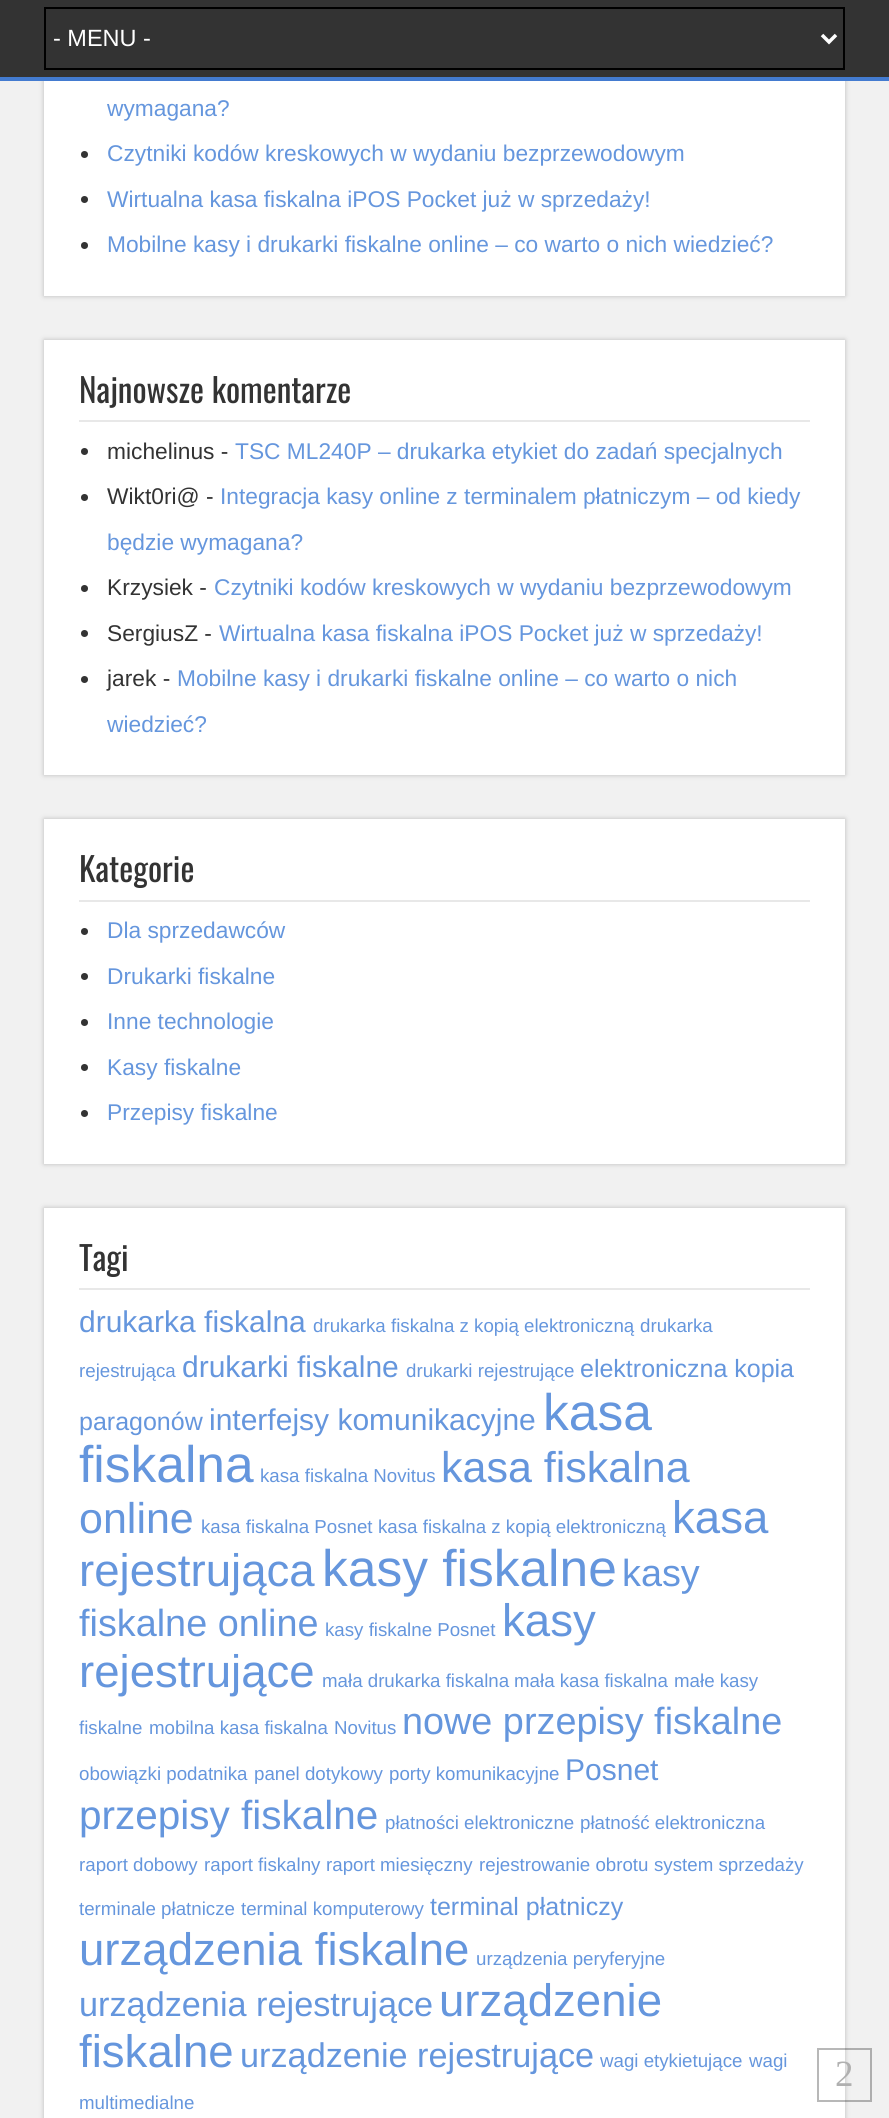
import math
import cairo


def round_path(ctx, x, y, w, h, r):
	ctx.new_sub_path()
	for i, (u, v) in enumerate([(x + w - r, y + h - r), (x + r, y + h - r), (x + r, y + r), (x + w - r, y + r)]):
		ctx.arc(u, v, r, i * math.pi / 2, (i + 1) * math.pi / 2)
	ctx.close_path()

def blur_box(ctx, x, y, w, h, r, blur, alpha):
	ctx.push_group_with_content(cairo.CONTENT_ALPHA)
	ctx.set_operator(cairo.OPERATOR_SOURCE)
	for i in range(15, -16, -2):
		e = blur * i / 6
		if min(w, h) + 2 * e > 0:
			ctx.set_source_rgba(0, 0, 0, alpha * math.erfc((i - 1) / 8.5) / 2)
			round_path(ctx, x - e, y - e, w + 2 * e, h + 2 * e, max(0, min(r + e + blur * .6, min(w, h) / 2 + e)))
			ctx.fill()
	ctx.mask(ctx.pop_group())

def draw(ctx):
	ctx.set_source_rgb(0.945, 0.945, 0.945)
	ctx.paint()
	ctx.set_source_rgb(0.733, 0.733, 0.733)
	blur_box(ctx, 44, -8, 801, 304, 0, 2.5, 1)
	ctx.set_source_rgb(0.2, 0.2, 0.2)
	ctx.rectangle(0, 0, 889, 77)
	ctx.fill()
	ctx.set_source_rgb(0.263, 0.482, 0.816)
	ctx.rectangle(0, 77, 889, 4)
	ctx.fill()
	ctx.rectangle(45, 8, 799, 61)
	ctx.set_source_rgb(0, 0, 0)
	ctx.stroke()
	ctx.new_path()
	ctx.move_to(822, 35)
	ctx.line_to(829, 42)
	ctx.line_to(836, 35)
	ctx.set_source_rgb(1, 1, 1)
	ctx.set_line_width(3.5)
	ctx.stroke()
	ctx.select_font_face('Liberation Sans')
	ctx.set_font_size(23.5)
	ctx.move_to(53, 46)
	ctx.show_text('- MENU -')
	ctx.rectangle(44, 81, 801, 215)
	ctx.fill()
	ctx.set_font_size(22.75)
	ctx.set_source_rgb(0.396, 0.588, 0.867)
	ctx.move_to(107, 116)
	ctx.show_text('wymagana?')
	ctx.set_source_rgb(0.2, 0.2, 0.2)
	ctx.new_path()
	ctx.arc(84.5, 154.5, 3.5, 0, 2 * math.pi)
	ctx.fill()
	ctx.set_source_rgb(0.396, 0.588, 0.867)
	ctx.move_to(107, 161)
	ctx.show_text('Czytniki kodów kreskowych w wydaniu bezprzewodowym')
	ctx.set_source_rgb(0.2, 0.2, 0.2)
	ctx.new_path()
	ctx.arc(84.5, 199.5, 3.5, 0, 2 * math.pi)
	ctx.fill()
	ctx.set_source_rgb(0.396, 0.588, 0.867)
	ctx.move_to(107, 207)
	ctx.show_text('Wirtualna kasa fiskalna iPOS Pocket już w sprzedaży!')
	ctx.set_source_rgb(0.2, 0.2, 0.2)
	ctx.new_path()
	ctx.arc(84.5, 245.5, 3.5, 0, 2 * math.pi)
	ctx.fill()
	ctx.set_source_rgb(0.396, 0.588, 0.867)
	ctx.move_to(107, 252)
	ctx.show_text('Mobilne kasy i drukarki fiskalne online – co warto o nich wiedzieć?')
	ctx.set_source_rgb(0.733, 0.733, 0.733)
	blur_box(ctx, 44, 340, 801, 435, 0, 2.5, 1)
	ctx.set_source_rgb(1, 1, 1)
	ctx.rectangle(44, 340, 801, 435)
	ctx.fill()
	ctx.set_source_rgb(0.91, 0.91, 0.91)
	ctx.rectangle(79, 420, 731, 2)
	ctx.fill()
	ctx.select_font_face('Oswald')
	ctx.set_font_size(33.25)
	ctx.set_source_rgb(0.2, 0.2, 0.2)
	ctx.move_to(79, 403)
	ctx.show_text('Najnowsze komentarze')
	ctx.new_path()
	ctx.arc(84.5, 451.5, 3.5, 0, 2 * math.pi)
	ctx.fill()
	ctx.select_font_face('Liberation Sans')
	ctx.set_font_size(22.75)
	ctx.move_to(107, 459)
	ctx.show_text('michelinus -')
	ctx.set_source_rgb(0.396, 0.588, 0.867)
	ctx.move_to(235, 459)
	ctx.show_text('TSC ML240P – drukarka etykiet do zadań specjalnych')
	ctx.set_source_rgb(0.2, 0.2, 0.2)
	ctx.new_path()
	ctx.arc(84.5, 497.5, 3.5, 0, 2 * math.pi)
	ctx.fill()
	ctx.move_to(107, 504)
	ctx.show_text('Wikt0ri@ -')
	ctx.set_source_rgb(0.396, 0.588, 0.867)
	ctx.move_to(220, 504)
	ctx.show_text('Integracja kasy online z terminalem płatniczym – od kiedy')
	ctx.move_to(107, 550)
	ctx.show_text('będzie wymagana?')
	ctx.set_source_rgb(0.2, 0.2, 0.2)
	ctx.new_path()
	ctx.arc(84.5, 588.5, 3.5, 0, 2 * math.pi)
	ctx.fill()
	ctx.move_to(107, 595)
	ctx.show_text('Krzysiek -')
	ctx.set_source_rgb(0.396, 0.588, 0.867)
	ctx.move_to(214, 595)
	ctx.show_text('Czytniki kodów kreskowych w wydaniu bezprzewodowym')
	ctx.set_source_rgb(0.2, 0.2, 0.2)
	ctx.new_path()
	ctx.arc(84.5, 633.5, 3.5, 0, 2 * math.pi)
	ctx.fill()
	ctx.move_to(107, 641)
	ctx.show_text('SergiusZ -')
	ctx.set_source_rgb(0.396, 0.588, 0.867)
	ctx.move_to(219, 641)
	ctx.show_text('Wirtualna kasa fiskalna iPOS Pocket już w sprzedaży!')
	ctx.set_source_rgb(0.2, 0.2, 0.2)
	ctx.new_path()
	ctx.arc(84.5, 679.5, 3.5, 0, 2 * math.pi)
	ctx.fill()
	ctx.move_to(107, 686)
	ctx.show_text('jarek -')
	ctx.set_source_rgb(0.396, 0.588, 0.867)
	ctx.move_to(177, 686)
	ctx.show_text('Mobilne kasy i drukarki fiskalne online – co warto o nich')
	ctx.move_to(107, 732)
	ctx.show_text('wiedzieć?')
	ctx.set_source_rgb(0.733, 0.733, 0.733)
	blur_box(ctx, 44, 819, 801, 345, 0, 2.5, 1)
	ctx.set_source_rgb(1, 1, 1)
	ctx.rectangle(44, 819, 801, 345)
	ctx.fill()
	ctx.set_source_rgb(0.91, 0.91, 0.91)
	ctx.rectangle(79, 900, 731, 2)
	ctx.fill()
	ctx.select_font_face('Oswald')
	ctx.set_font_size(33.25)
	ctx.set_source_rgb(0.2, 0.2, 0.2)
	ctx.move_to(79, 882)
	ctx.show_text('Kategorie')
	ctx.new_path()
	ctx.arc(84.5, 931.5, 3.5, 0, 2 * math.pi)
	ctx.fill()
	ctx.select_font_face('Liberation Sans')
	ctx.set_font_size(22.75)
	ctx.set_source_rgb(0.396, 0.588, 0.867)
	ctx.move_to(107, 938)
	ctx.show_text('Dla sprzedawców')
	ctx.set_source_rgb(0.2, 0.2, 0.2)
	ctx.new_path()
	ctx.arc(84.5, 976.5, 3.5, 0, 2 * math.pi)
	ctx.fill()
	ctx.set_source_rgb(0.396, 0.588, 0.867)
	ctx.move_to(107, 984)
	ctx.show_text('Drukarki fiskalne')
	ctx.set_source_rgb(0.2, 0.2, 0.2)
	ctx.new_path()
	ctx.arc(84.5, 1022.5, 3.5, 0, 2 * math.pi)
	ctx.fill()
	ctx.set_source_rgb(0.396, 0.588, 0.867)
	ctx.move_to(107, 1029)
	ctx.show_text('Inne technologie')
	ctx.set_source_rgb(0.2, 0.2, 0.2)
	ctx.new_path()
	ctx.arc(84.5, 1067.5, 3.5, 0, 2 * math.pi)
	ctx.fill()
	ctx.set_source_rgb(0.396, 0.588, 0.867)
	ctx.move_to(107, 1075)
	ctx.show_text('Kasy fiskalne')
	ctx.set_source_rgb(0.2, 0.2, 0.2)
	ctx.new_path()
	ctx.arc(84.5, 1113.5, 3.5, 0, 2 * math.pi)
	ctx.fill()
	ctx.set_source_rgb(0.396, 0.588, 0.867)
	ctx.move_to(107, 1120)
	ctx.show_text('Przepisy fiskalne')
	ctx.set_source_rgb(0.733, 0.733, 0.733)
	blur_box(ctx, 44, 1208, 801, 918, 0, 2.5, 1)
	ctx.set_source_rgb(1, 1, 1)
	ctx.rectangle(44, 1208, 801, 910)
	ctx.fill()
	ctx.set_source_rgb(0.91, 0.91, 0.91)
	ctx.rectangle(79, 1288, 731, 2)
	ctx.fill()
	ctx.select_font_face('Oswald')
	ctx.set_font_size(33.25)
	ctx.set_source_rgb(0.2, 0.2, 0.2)
	ctx.move_to(79, 1271)
	ctx.show_text('Tagi')
	ctx.select_font_face('Liberation Sans')
	ctx.set_font_size(30)
	ctx.set_source_rgb(0.396, 0.588, 0.867)
	ctx.move_to(79, 1332)
	ctx.show_text('drukarka fiskalna')
	ctx.set_font_size(18.7)
	for x, y, s in [
		(313, 1332, 'drukarka fiskalna z kopią elektroniczną'),
		(640, 1332, 'drukarka'),
		(79, 1377, 'rejestrująca'),
	]:
		ctx.move_to(x, y)
		ctx.show_text(s)
	ctx.set_font_size(30)
	ctx.move_to(182, 1377)
	ctx.show_text('drukarki fiskalne')
	ctx.set_font_size(18.7)
	ctx.move_to(406, 1377)
	ctx.show_text('drukarki rejestrujące')
	ctx.set_font_size(25)
	ctx.move_to(580, 1377)
	ctx.show_text('elektroniczna kopia')
	ctx.move_to(79, 1430)
	ctx.show_text('paragonów')
	ctx.set_font_size(30)
	ctx.move_to(209, 1430)
	ctx.show_text('interfejsy komunikacyjne')
	ctx.set_font_size(51.5)
	ctx.move_to(543, 1430)
	ctx.show_text('kasa')
	ctx.move_to(79, 1482)
	ctx.show_text('fiskalna')
	ctx.set_font_size(18.7)
	ctx.move_to(260, 1482)
	ctx.show_text('kasa fiskalna Novitus')
	ctx.set_font_size(43)
	ctx.move_to(441, 1482)
	ctx.show_text('kasa fiskalna')
	ctx.move_to(79, 1533)
	ctx.show_text('online')
	ctx.set_font_size(18.7)
	ctx.move_to(201, 1533)
	ctx.show_text('kasa fiskalna Posnet')
	ctx.move_to(378, 1533)
	ctx.show_text('kasa fiskalna z kopią elektroniczną')
	ctx.set_font_size(45.6)
	ctx.move_to(672, 1533)
	ctx.show_text('kasa')
	ctx.move_to(79, 1586)
	ctx.show_text('rejestrująca')
	ctx.set_font_size(51.5)
	ctx.move_to(322, 1586)
	ctx.show_text('kasy fiskalne')
	ctx.set_font_size(37.8)
	ctx.move_to(622, 1586)
	ctx.show_text('kasy')
	ctx.move_to(79, 1636)
	ctx.show_text('fiskalne online')
	ctx.set_font_size(18.7)
	ctx.move_to(325, 1636)
	ctx.show_text('kasy fiskalne Posnet')
	ctx.set_font_size(45.6)
	ctx.move_to(502, 1636)
	ctx.show_text('kasy')
	ctx.move_to(79, 1687)
	ctx.show_text('rejestrujące')
	ctx.set_font_size(18.7)
	for x, y, s in [
		(322, 1687, 'mała drukarka fiskalna'),
		(514, 1687, 'mała kasa fiskalna'),
		(674, 1687, 'małe kasy'),
		(79, 1734, 'fiskalne'),
		(149, 1734, 'mobilna kasa fiskalna'),
		(334, 1734, 'Novitus'),
	]:
		ctx.move_to(x, y)
		ctx.show_text(s)
	ctx.set_font_size(37.8)
	ctx.move_to(402, 1734)
	ctx.show_text('nowe przepisy fiskalne')
	ctx.set_font_size(18.7)
	for x, y, s in [
		(79, 1780, 'obowiązki podatnika'),
		(254, 1780, 'panel dotykowy'),
		(389, 1780, 'porty komunikacyjne'),
	]:
		ctx.move_to(x, y)
		ctx.show_text(s)
	ctx.set_font_size(30)
	ctx.move_to(565, 1780)
	ctx.show_text('Posnet')
	ctx.set_font_size(40.5)
	ctx.move_to(79, 1829)
	ctx.show_text('przepisy fiskalne')
	ctx.set_font_size(18.7)
	for x, y, s in [
		(385, 1829, 'płatności elektroniczne'),
		(580, 1829, 'płatność elektroniczna'),
		(79, 1871, 'raport dobowy'),
		(204, 1871, 'raport fiskalny'),
		(326, 1871, 'raport miesięczny'),
		(479, 1871, 'rejestrowanie obrotu'),
		(654, 1871, 'system sprzedaży'),
		(79, 1915, 'terminale płatnicze'),
		(241, 1915, 'terminal komputerowy'),
	]:
		ctx.move_to(x, y)
		ctx.show_text(s)
	ctx.set_font_size(25)
	ctx.move_to(430, 1915)
	ctx.show_text('terminal płatniczy')
	ctx.set_font_size(45.6)
	ctx.move_to(79, 1965)
	ctx.show_text('urządzenia fiskalne')
	ctx.set_font_size(18.7)
	ctx.move_to(476, 1965)
	ctx.show_text('urządzenia peryferyjne')
	ctx.set_font_size(34.25)
	ctx.move_to(79, 2016)
	ctx.show_text('urządzenia rejestrujące')
	ctx.set_font_size(45.6)
	ctx.move_to(439, 2016)
	ctx.show_text('urządzenie')
	ctx.move_to(79, 2067)
	ctx.show_text('fiskalne')
	ctx.set_font_size(34.25)
	ctx.move_to(240, 2067)
	ctx.show_text('urządzenie rejestrujące')
	ctx.set_font_size(18.7)
	for x, y, s in [
		(600, 2067, 'wagi etykietujące'),
		(749, 2067, 'wagi'),
		(79, 2109, 'multimedialne'),
	]:
		ctx.move_to(x, y)
		ctx.show_text(s)
	ctx.rectangle(818, 2049, 53, 52)
	ctx.set_source_rgba(0.067, 0.067, 0.067, 0.3)
	ctx.set_line_width(2)
	ctx.stroke()
	ctx.select_font_face('Liberation Serif')
	ctx.set_font_size(37)
	ctx.set_source_rgb(0.69, 0.69, 0.69)
	ctx.move_to(835, 2086)
	ctx.show_text('2')


surface = cairo.ImageSurface(cairo.FORMAT_RGB24, 889, 2118)
ctx = cairo.Context(surface)
options = cairo.FontOptions()
options.set_hint_metrics(cairo.HINT_METRICS_OFF)
options.set_hint_style(cairo.HINT_STYLE_NONE)
ctx.set_font_options(options)
ctx.set_miter_limit(4)
draw(ctx)
surface.write_to_png('image.png')
